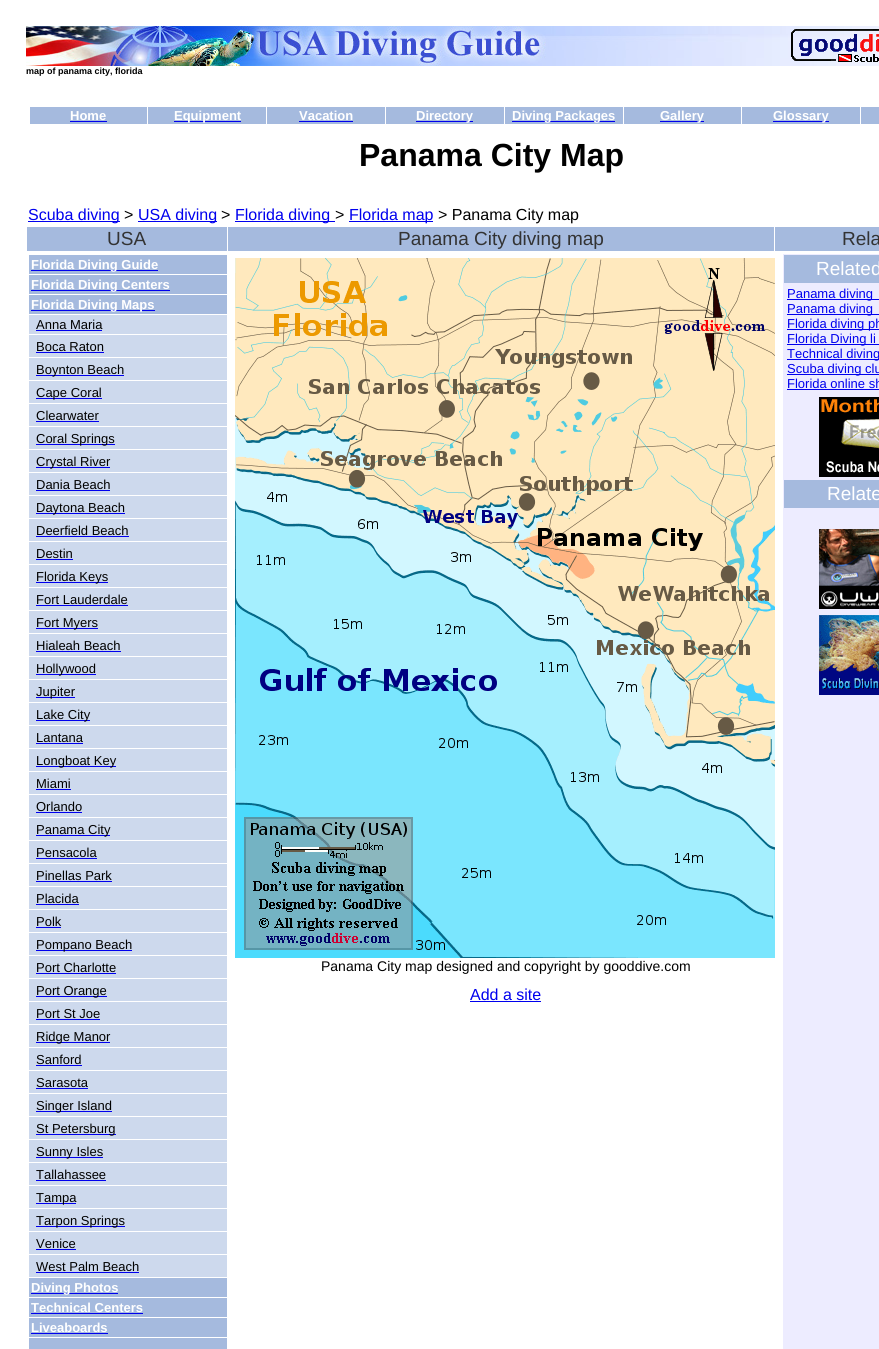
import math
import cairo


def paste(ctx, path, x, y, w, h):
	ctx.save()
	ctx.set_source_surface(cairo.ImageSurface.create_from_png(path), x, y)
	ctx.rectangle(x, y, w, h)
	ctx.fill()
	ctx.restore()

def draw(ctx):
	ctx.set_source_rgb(1, 1, 1)
	ctx.paint()
	paste(ctx, 'media/1.png', 26, 26, 634, 40)
	paste(ctx, 'media/2.png', 660, 26, 219, 40)
	paste(ctx, 'media/3.png', 791, 29, 88, 33)
	ctx.select_font_face('Liberation Sans', cairo.FONT_SLANT_NORMAL, cairo.FONT_WEIGHT_BOLD)
	ctx.set_font_size(9)
	ctx.set_source_rgb(0, 0, 0)
	ctx.move_to(26, 74)
	ctx.show_text('map of panama city, florida')
	ctx.set_source_rgb(0.647, 0.729, 0.871)
	ctx.rectangle(30, 107, 117, 17)
	ctx.fill()
	ctx.set_font_size(13)
	ctx.set_source_rgb(1, 1, 1)
	ctx.move_to(70, 120)
	ctx.show_text('Home')
	ctx.set_source_rgb(0, 0, 0.933)
	ctx.rectangle(70, 121, 37, 1)
	ctx.fill()
	ctx.set_source_rgb(0.647, 0.729, 0.871)
	ctx.rectangle(148, 107, 118, 17)
	ctx.fill()
	ctx.set_source_rgb(0, 0, 0.933)
	ctx.rectangle(174, 121, 67, 1)
	ctx.fill()
	ctx.set_source_rgb(1, 1, 1)
	ctx.move_to(174, 120)
	ctx.show_text('Equipment')
	ctx.set_source_rgb(0.647, 0.729, 0.871)
	ctx.rectangle(267, 107, 118, 17)
	ctx.fill()
	ctx.set_source_rgb(1, 1, 1)
	ctx.move_to(299, 120)
	ctx.show_text('Vacation')
	ctx.set_source_rgb(0, 0, 0.933)
	ctx.rectangle(299, 121, 54, 1)
	ctx.fill()
	ctx.set_source_rgb(0.647, 0.729, 0.871)
	ctx.rectangle(386, 107, 118, 17)
	ctx.fill()
	ctx.set_source_rgb(0, 0, 0.933)
	ctx.rectangle(416, 121, 57, 1)
	ctx.fill()
	ctx.set_source_rgb(1, 1, 1)
	ctx.move_to(416, 120)
	ctx.show_text('Directory')
	ctx.set_source_rgb(0.647, 0.729, 0.871)
	ctx.rectangle(505, 107, 118, 17)
	ctx.fill()
	ctx.set_source_rgb(0, 0, 0.933)
	ctx.rectangle(512, 121, 103, 1)
	ctx.fill()
	ctx.set_source_rgb(1, 1, 1)
	ctx.move_to(512, 120)
	ctx.show_text('Diving Packages')
	ctx.set_source_rgb(0.647, 0.729, 0.871)
	ctx.rectangle(624, 107, 117, 17)
	ctx.fill()
	ctx.set_source_rgb(0, 0, 0.933)
	ctx.rectangle(660, 121, 44, 1)
	ctx.fill()
	ctx.set_source_rgb(1, 1, 1)
	ctx.move_to(660, 120)
	ctx.show_text('Gallery')
	ctx.set_source_rgb(0.647, 0.729, 0.871)
	ctx.rectangle(742, 107, 118, 17)
	ctx.fill()
	ctx.set_source_rgb(0, 0, 0.933)
	ctx.rectangle(773, 121, 56, 1)
	ctx.fill()
	ctx.set_source_rgb(1, 1, 1)
	ctx.move_to(773, 120)
	ctx.show_text('Glossary')
	ctx.set_source_rgb(0.647, 0.729, 0.871)
	ctx.rectangle(861, 107, 18, 17)
	ctx.fill()
	ctx.set_font_size(32)
	ctx.set_source_rgb(0, 0, 0)
	ctx.move_to(359, 166)
	ctx.show_text('Panama City Map')
	ctx.set_source_rgb(0, 0, 0.933)
	ctx.rectangle(28, 221, 92, 1)
	ctx.fill()
	ctx.select_font_face('Liberation Sans')
	ctx.set_font_size(16)
	ctx.move_to(28, 220)
	ctx.show_text('Scuba diving')
	ctx.set_source_rgb(0, 0, 0)
	ctx.move_to(124, 220)
	ctx.show_text('>')
	ctx.set_source_rgb(0, 0, 0.933)
	ctx.rectangle(138, 221, 79, 1)
	ctx.fill()
	ctx.move_to(138, 220)
	ctx.show_text('USA diving')
	ctx.set_source_rgb(0, 0, 0)
	ctx.move_to(221, 220)
	ctx.show_text('>')
	ctx.set_source_rgb(0, 0, 0.933)
	ctx.rectangle(235, 221, 100, 1)
	ctx.fill()
	ctx.move_to(235, 220)
	ctx.show_text('Florida diving')
	ctx.set_source_rgb(0, 0, 0)
	ctx.move_to(335, 220)
	ctx.show_text('>')
	ctx.set_source_rgb(0, 0, 0.933)
	ctx.rectangle(349, 221, 84, 1)
	ctx.fill()
	ctx.move_to(349, 220)
	ctx.show_text('Florida map')
	ctx.set_source_rgb(0, 0, 0)
	ctx.move_to(438, 220)
	ctx.show_text('> Panama City map')
	ctx.set_source_rgb(0.647, 0.729, 0.871)
	ctx.rectangle(27, 227, 200, 24)
	ctx.fill()
	ctx.set_font_size(19)
	ctx.set_source_rgb(0.2, 0.2, 0.2)
	ctx.move_to(107, 245)
	ctx.show_text('USA')
	ctx.set_source_rgb(0.647, 0.729, 0.871)
	ctx.rectangle(228, 227, 546, 24)
	ctx.fill()
	ctx.set_source_rgb(0.2, 0.2, 0.2)
	ctx.move_to(398, 245)
	ctx.show_text('Panama City diving map')
	ctx.set_source_rgb(0.647, 0.729, 0.871)
	ctx.rectangle(775, 227, 104, 24)
	ctx.fill()
	ctx.set_source_rgb(0.2, 0.2, 0.2)
	ctx.move_to(842, 245)
	ctx.show_text('Rela')
	ctx.set_source_rgb(0.647, 0.729, 0.871)
	ctx.rectangle(29, 255, 198, 19)
	ctx.fill()
	ctx.set_source_rgb(0, 0, 0.933)
	ctx.rectangle(31, 270, 127, 1)
	ctx.fill()
	ctx.select_font_face('Liberation Sans', cairo.FONT_SLANT_NORMAL, cairo.FONT_WEIGHT_BOLD)
	ctx.set_font_size(13)
	ctx.set_source_rgb(1, 1, 1)
	ctx.move_to(31, 269)
	ctx.show_text('Florida Diving Guide')
	ctx.set_source_rgb(0.647, 0.729, 0.871)
	ctx.rectangle(29, 275, 198, 19)
	ctx.fill()
	ctx.set_source_rgb(0, 0, 0.933)
	ctx.rectangle(31, 290, 139, 1)
	ctx.fill()
	ctx.set_source_rgb(1, 1, 1)
	ctx.move_to(31, 289)
	ctx.show_text('Florida Diving Centers')
	ctx.set_source_rgb(0.647, 0.729, 0.871)
	ctx.rectangle(29, 295, 198, 19)
	ctx.fill()
	ctx.set_source_rgb(0, 0, 0.933)
	ctx.rectangle(31, 310, 124, 1)
	ctx.fill()
	ctx.set_source_rgb(1, 1, 1)
	ctx.move_to(31, 309)
	ctx.show_text('Florida Diving Maps')
	ctx.set_source_rgb(0.804, 0.851, 0.929)
	ctx.rectangle(29, 315, 198, 19)
	ctx.fill()
	ctx.select_font_face('Liberation Sans')
	ctx.set_source_rgb(0, 0, 0)
	ctx.move_to(36, 329)
	ctx.show_text('Anna Maria')
	ctx.set_source_rgb(0, 0, 0.933)
	ctx.rectangle(36, 330, 66, 1)
	ctx.fill()
	ctx.set_source_rgb(0.804, 0.851, 0.929)
	ctx.rectangle(29, 335, 198, 22)
	ctx.fill()
	ctx.set_source_rgb(0, 0, 0)
	ctx.move_to(36, 351)
	ctx.show_text('Boca Raton')
	ctx.set_source_rgb(0, 0, 0.933)
	ctx.rectangle(36, 352, 68, 1)
	ctx.fill()
	ctx.set_source_rgb(0.804, 0.851, 0.929)
	ctx.rectangle(29, 358, 198, 22)
	ctx.fill()
	ctx.set_source_rgb(0, 0, 0.933)
	ctx.rectangle(36, 375, 88, 1)
	ctx.fill()
	ctx.set_source_rgb(0, 0, 0)
	ctx.move_to(36, 374)
	ctx.show_text('Boynton Beach')
	ctx.set_source_rgb(0.804, 0.851, 0.929)
	ctx.rectangle(29, 381, 198, 22)
	ctx.fill()
	ctx.set_source_rgb(0, 0, 0.933)
	ctx.rectangle(36, 398, 66, 1)
	ctx.fill()
	ctx.set_source_rgb(0, 0, 0)
	ctx.move_to(36, 397)
	ctx.show_text('Cape Coral')
	ctx.set_source_rgb(0.804, 0.851, 0.929)
	ctx.rectangle(29, 404, 198, 22)
	ctx.fill()
	ctx.set_source_rgb(0, 0, 0)
	ctx.move_to(36, 420)
	ctx.show_text('Clearwater')
	ctx.set_source_rgb(0, 0, 0.933)
	ctx.rectangle(36, 421, 63, 1)
	ctx.fill()
	ctx.set_source_rgb(0.804, 0.851, 0.929)
	ctx.rectangle(29, 427, 198, 22)
	ctx.fill()
	ctx.set_source_rgb(0, 0, 0.933)
	ctx.rectangle(36, 444, 79, 1)
	ctx.fill()
	ctx.set_source_rgb(0, 0, 0)
	ctx.move_to(36, 443)
	ctx.show_text('Coral Springs')
	ctx.set_source_rgb(0.804, 0.851, 0.929)
	ctx.rectangle(29, 450, 198, 22)
	ctx.fill()
	ctx.set_source_rgb(0, 0, 0.933)
	ctx.rectangle(36, 467, 74, 1)
	ctx.fill()
	ctx.set_source_rgb(0, 0, 0)
	ctx.move_to(36, 466)
	ctx.show_text('Crystal River')
	ctx.set_source_rgb(0.804, 0.851, 0.929)
	ctx.rectangle(29, 473, 198, 22)
	ctx.fill()
	ctx.set_source_rgb(0, 0, 0)
	ctx.move_to(36, 489)
	ctx.show_text('Dania Beach')
	ctx.set_source_rgb(0, 0, 0.933)
	ctx.rectangle(36, 490, 74, 1)
	ctx.fill()
	ctx.set_source_rgb(0.804, 0.851, 0.929)
	ctx.rectangle(29, 496, 198, 22)
	ctx.fill()
	ctx.set_source_rgb(0, 0, 0.933)
	ctx.rectangle(36, 513, 89, 1)
	ctx.fill()
	ctx.set_source_rgb(0, 0, 0)
	ctx.move_to(36, 512)
	ctx.show_text('Daytona Beach')
	ctx.set_source_rgb(0.804, 0.851, 0.929)
	ctx.rectangle(29, 519, 198, 22)
	ctx.fill()
	ctx.set_source_rgb(0, 0, 0)
	ctx.move_to(36, 535)
	ctx.show_text('Deerfield Beach')
	ctx.set_source_rgb(0, 0, 0.933)
	ctx.rectangle(36, 536, 93, 1)
	ctx.fill()
	ctx.set_source_rgb(0.804, 0.851, 0.929)
	ctx.rectangle(29, 542, 198, 22)
	ctx.fill()
	ctx.set_source_rgb(0, 0, 0)
	ctx.move_to(36, 558)
	ctx.show_text('Destin')
	ctx.set_source_rgb(0, 0, 0.933)
	ctx.rectangle(36, 559, 37, 1)
	ctx.fill()
	ctx.set_source_rgb(0.804, 0.851, 0.929)
	ctx.rectangle(29, 565, 198, 22)
	ctx.fill()
	ctx.set_source_rgb(0, 0, 0.933)
	ctx.rectangle(36, 582, 72, 1)
	ctx.fill()
	ctx.set_source_rgb(0, 0, 0)
	ctx.move_to(36, 581)
	ctx.show_text('Florida Keys')
	ctx.set_source_rgb(0.804, 0.851, 0.929)
	ctx.rectangle(29, 588, 198, 22)
	ctx.fill()
	ctx.set_source_rgb(0, 0, 0)
	ctx.move_to(36, 604)
	ctx.show_text('Fort Lauderdale')
	ctx.set_source_rgb(0, 0, 0.933)
	ctx.rectangle(36, 605, 92, 1)
	ctx.fill()
	ctx.set_source_rgb(0.804, 0.851, 0.929)
	ctx.rectangle(29, 611, 198, 22)
	ctx.fill()
	ctx.set_source_rgb(0, 0, 0.933)
	ctx.rectangle(36, 628, 62, 1)
	ctx.fill()
	ctx.set_source_rgb(0, 0, 0)
	ctx.move_to(36, 627)
	ctx.show_text('Fort Myers')
	ctx.set_source_rgb(0.804, 0.851, 0.929)
	ctx.rectangle(29, 634, 198, 22)
	ctx.fill()
	ctx.set_source_rgb(0, 0, 0)
	ctx.move_to(36, 650)
	ctx.show_text('Hialeah Beach')
	ctx.set_source_rgb(0, 0, 0.933)
	ctx.rectangle(36, 651, 85, 1)
	ctx.fill()
	ctx.set_source_rgb(0.804, 0.851, 0.929)
	ctx.rectangle(29, 657, 198, 22)
	ctx.fill()
	ctx.set_source_rgb(0, 0, 0.933)
	ctx.rectangle(36, 674, 60, 1)
	ctx.fill()
	ctx.set_source_rgb(0, 0, 0)
	ctx.move_to(36, 673)
	ctx.show_text('Hollywood')
	ctx.set_source_rgb(0.804, 0.851, 0.929)
	ctx.rectangle(29, 680, 198, 22)
	ctx.fill()
	ctx.set_source_rgb(0, 0, 0.933)
	ctx.rectangle(36, 697, 39, 1)
	ctx.fill()
	ctx.set_source_rgb(0, 0, 0)
	ctx.move_to(36, 696)
	ctx.show_text('Jupiter')
	ctx.set_source_rgb(0.804, 0.851, 0.929)
	ctx.rectangle(29, 703, 198, 22)
	ctx.fill()
	ctx.set_source_rgb(0, 0, 0.933)
	ctx.rectangle(36, 720, 54, 1)
	ctx.fill()
	ctx.set_source_rgb(0, 0, 0)
	ctx.move_to(36, 719)
	ctx.show_text('Lake City')
	ctx.set_source_rgb(0.804, 0.851, 0.929)
	ctx.rectangle(29, 726, 198, 22)
	ctx.fill()
	ctx.set_source_rgb(0, 0, 0)
	ctx.move_to(36, 742)
	ctx.show_text('Lantana')
	ctx.set_source_rgb(0, 0, 0.933)
	ctx.rectangle(36, 743, 47, 1)
	ctx.fill()
	ctx.set_source_rgb(0.804, 0.851, 0.929)
	ctx.rectangle(29, 749, 198, 22)
	ctx.fill()
	ctx.set_source_rgb(0, 0, 0.933)
	ctx.rectangle(36, 766, 80, 1)
	ctx.fill()
	ctx.set_source_rgb(0, 0, 0)
	ctx.move_to(36, 765)
	ctx.show_text('Longboat Key')
	ctx.set_source_rgb(0.804, 0.851, 0.929)
	ctx.rectangle(29, 772, 198, 22)
	ctx.fill()
	ctx.set_source_rgb(0, 0, 0)
	ctx.move_to(36, 788)
	ctx.show_text('Miami')
	ctx.set_source_rgb(0, 0, 0.933)
	ctx.rectangle(36, 789, 35, 1)
	ctx.fill()
	ctx.set_source_rgb(0.804, 0.851, 0.929)
	ctx.rectangle(29, 795, 198, 22)
	ctx.fill()
	ctx.set_source_rgb(0, 0, 0)
	ctx.move_to(36, 811)
	ctx.show_text('Orlando')
	ctx.set_source_rgb(0, 0, 0.933)
	ctx.rectangle(36, 812, 46, 1)
	ctx.fill()
	ctx.set_source_rgb(0.804, 0.851, 0.929)
	ctx.rectangle(29, 818, 198, 22)
	ctx.fill()
	ctx.set_source_rgb(0, 0, 0.933)
	ctx.rectangle(36, 835, 74, 1)
	ctx.fill()
	ctx.set_source_rgb(0, 0, 0)
	ctx.move_to(36, 834)
	ctx.show_text('Panama City')
	ctx.set_source_rgb(0.804, 0.851, 0.929)
	ctx.rectangle(29, 841, 198, 22)
	ctx.fill()
	ctx.set_source_rgb(0, 0, 0)
	ctx.move_to(36, 857)
	ctx.show_text('Pensacola')
	ctx.set_source_rgb(0, 0, 0.933)
	ctx.rectangle(36, 858, 61, 1)
	ctx.fill()
	ctx.set_source_rgb(0.804, 0.851, 0.929)
	ctx.rectangle(29, 864, 198, 22)
	ctx.fill()
	ctx.set_source_rgb(0, 0, 0)
	ctx.move_to(36, 880)
	ctx.show_text('Pinellas Park')
	ctx.set_source_rgb(0, 0, 0.933)
	ctx.rectangle(36, 881, 76, 1)
	ctx.fill()
	ctx.set_source_rgb(0.804, 0.851, 0.929)
	ctx.rectangle(29, 887, 198, 22)
	ctx.fill()
	ctx.set_source_rgb(0, 0, 0)
	ctx.move_to(36, 903)
	ctx.show_text('Placida')
	ctx.set_source_rgb(0, 0, 0.933)
	ctx.rectangle(36, 904, 43, 1)
	ctx.fill()
	ctx.set_source_rgb(0.804, 0.851, 0.929)
	ctx.rectangle(29, 910, 198, 22)
	ctx.fill()
	ctx.set_source_rgb(0, 0, 0)
	ctx.move_to(36, 926)
	ctx.show_text('Polk')
	ctx.set_source_rgb(0, 0, 0.933)
	ctx.rectangle(36, 927, 25, 1)
	ctx.fill()
	ctx.set_source_rgb(0.804, 0.851, 0.929)
	ctx.rectangle(29, 933, 198, 22)
	ctx.fill()
	ctx.set_source_rgb(0, 0, 0.933)
	ctx.rectangle(36, 950, 96, 1)
	ctx.fill()
	ctx.set_source_rgb(0, 0, 0)
	ctx.move_to(36, 949)
	ctx.show_text('Pompano Beach')
	ctx.set_source_rgb(0.804, 0.851, 0.929)
	ctx.rectangle(29, 956, 198, 22)
	ctx.fill()
	ctx.set_source_rgb(0, 0, 0)
	ctx.move_to(36, 972)
	ctx.show_text('Port Charlotte')
	ctx.set_source_rgb(0, 0, 0.933)
	ctx.rectangle(36, 973, 80, 1)
	ctx.fill()
	ctx.set_source_rgb(0.804, 0.851, 0.929)
	ctx.rectangle(29, 979, 198, 22)
	ctx.fill()
	ctx.set_source_rgb(0, 0, 0.933)
	ctx.rectangle(36, 996, 71, 1)
	ctx.fill()
	ctx.set_source_rgb(0, 0, 0)
	ctx.move_to(36, 995)
	ctx.show_text('Port Orange')
	ctx.set_source_rgb(0.804, 0.851, 0.929)
	ctx.rectangle(29, 1002, 198, 22)
	ctx.fill()
	ctx.set_source_rgb(0, 0, 0)
	ctx.move_to(36, 1018)
	ctx.show_text('Port St Joe')
	ctx.set_source_rgb(0, 0, 0.933)
	ctx.rectangle(36, 1019, 64, 1)
	ctx.fill()
	ctx.set_source_rgb(0.804, 0.851, 0.929)
	ctx.rectangle(29, 1025, 198, 22)
	ctx.fill()
	ctx.set_source_rgb(0, 0, 0.933)
	ctx.rectangle(36, 1042, 74, 1)
	ctx.fill()
	ctx.set_source_rgb(0, 0, 0)
	ctx.move_to(36, 1041)
	ctx.show_text('Ridge Manor')
	ctx.set_source_rgb(0.804, 0.851, 0.929)
	ctx.rectangle(29, 1048, 198, 22)
	ctx.fill()
	ctx.set_source_rgb(0, 0, 0)
	ctx.move_to(36, 1064)
	ctx.show_text('Sanford')
	ctx.set_source_rgb(0, 0, 0.933)
	ctx.rectangle(36, 1065, 46, 1)
	ctx.fill()
	ctx.set_source_rgb(0.804, 0.851, 0.929)
	ctx.rectangle(29, 1071, 198, 22)
	ctx.fill()
	ctx.set_source_rgb(0, 0, 0)
	ctx.move_to(36, 1087)
	ctx.show_text('Sarasota')
	ctx.set_source_rgb(0, 0, 0.933)
	ctx.rectangle(36, 1088, 52, 1)
	ctx.fill()
	ctx.set_source_rgb(0.804, 0.851, 0.929)
	ctx.rectangle(29, 1094, 198, 22)
	ctx.fill()
	ctx.set_source_rgb(0, 0, 0.933)
	ctx.rectangle(36, 1111, 76, 1)
	ctx.fill()
	ctx.set_source_rgb(0, 0, 0)
	ctx.move_to(36, 1110)
	ctx.show_text('Singer Island')
	ctx.set_source_rgb(0.804, 0.851, 0.929)
	ctx.rectangle(29, 1117, 198, 22)
	ctx.fill()
	ctx.set_source_rgb(0, 0, 0.933)
	ctx.rectangle(36, 1134, 80, 1)
	ctx.fill()
	ctx.set_source_rgb(0, 0, 0)
	ctx.move_to(36, 1133)
	ctx.show_text('St Petersburg')
	ctx.set_source_rgb(0.804, 0.851, 0.929)
	ctx.rectangle(29, 1140, 198, 22)
	ctx.fill()
	ctx.set_source_rgb(0, 0, 0.933)
	ctx.rectangle(36, 1157, 67, 1)
	ctx.fill()
	ctx.set_source_rgb(0, 0, 0)
	ctx.move_to(36, 1156)
	ctx.show_text('Sunny Isles')
	ctx.set_source_rgb(0.804, 0.851, 0.929)
	ctx.rectangle(29, 1163, 198, 22)
	ctx.fill()
	ctx.set_source_rgb(0, 0, 0)
	ctx.move_to(36, 1179)
	ctx.show_text('Tallahassee')
	ctx.set_source_rgb(0, 0, 0.933)
	ctx.rectangle(36, 1180, 70, 1)
	ctx.fill()
	ctx.set_source_rgb(0.804, 0.851, 0.929)
	ctx.rectangle(29, 1186, 198, 22)
	ctx.fill()
	ctx.set_source_rgb(0, 0, 0.933)
	ctx.rectangle(36, 1203, 40, 1)
	ctx.fill()
	ctx.set_source_rgb(0, 0, 0)
	ctx.move_to(36, 1202)
	ctx.show_text('Tampa')
	ctx.set_source_rgb(0.804, 0.851, 0.929)
	ctx.rectangle(29, 1209, 198, 22)
	ctx.fill()
	ctx.set_source_rgb(0, 0, 0.933)
	ctx.rectangle(36, 1226, 89, 1)
	ctx.fill()
	ctx.set_source_rgb(0, 0, 0)
	ctx.move_to(36, 1225)
	ctx.show_text('Tarpon Springs')
	ctx.set_source_rgb(0.804, 0.851, 0.929)
	ctx.rectangle(29, 1232, 198, 22)
	ctx.fill()
	ctx.set_source_rgb(0, 0, 0)
	ctx.move_to(36, 1248)
	ctx.show_text('Venice')
	ctx.set_source_rgb(0, 0, 0.933)
	ctx.rectangle(36, 1249, 40, 1)
	ctx.fill()
	ctx.set_source_rgb(0.804, 0.851, 0.929)
	ctx.rectangle(29, 1255, 198, 22)
	ctx.fill()
	ctx.set_source_rgb(0, 0, 0)
	ctx.move_to(36, 1271)
	ctx.show_text('West Palm Beach')
	ctx.set_source_rgb(0, 0, 0.933)
	ctx.rectangle(36, 1272, 103, 1)
	ctx.fill()
	ctx.set_source_rgb(0.647, 0.729, 0.871)
	ctx.rectangle(29, 1278, 198, 19)
	ctx.fill()
	ctx.set_source_rgb(0, 0, 0.933)
	ctx.rectangle(31, 1293, 87, 1)
	ctx.fill()
	ctx.select_font_face('Liberation Sans', cairo.FONT_SLANT_NORMAL, cairo.FONT_WEIGHT_BOLD)
	ctx.set_source_rgb(1, 1, 1)
	ctx.move_to(31, 1292)
	ctx.show_text('Diving Photos')
	ctx.set_source_rgb(0.647, 0.729, 0.871)
	ctx.rectangle(29, 1298, 198, 19)
	ctx.fill()
	ctx.set_source_rgb(1, 1, 1)
	ctx.move_to(31, 1312)
	ctx.show_text('Technical Centers')
	ctx.set_source_rgb(0, 0, 0.933)
	ctx.rectangle(31, 1313, 112, 1)
	ctx.fill()
	ctx.set_source_rgb(0.647, 0.729, 0.871)
	ctx.rectangle(29, 1318, 198, 19)
	ctx.fill()
	ctx.set_source_rgb(1, 1, 1)
	ctx.move_to(31, 1332)
	ctx.show_text('Liveaboards')
	ctx.set_source_rgb(0, 0, 0.933)
	ctx.rectangle(31, 1333, 77, 1)
	ctx.fill()
	ctx.set_source_rgb(0.647, 0.729, 0.871)
	ctx.rectangle(29, 1338, 198, 11)
	ctx.fill()
	ctx.set_source_rgb(0.929, 0.925, 1)
	ctx.rectangle(783, 254, 96, 1095)
	ctx.fill()
	ctx.set_source_rgb(0.647, 0.729, 0.871)
	ctx.rectangle(784, 255, 95, 28)
	ctx.fill()
	ctx.select_font_face('Liberation Sans')
	ctx.set_font_size(19)
	ctx.set_source_rgb(1, 1, 1)
	ctx.move_to(816, 275)
	ctx.show_text('Related')
	ctx.set_source_rgb(0, 0, 0.933)
	ctx.rectangle(787, 299, 92, 1)
	ctx.fill()
	ctx.set_font_size(13)
	ctx.move_to(787, 298)
	ctx.show_text('Panama diving')
	ctx.rectangle(787, 314, 92, 1)
	ctx.fill()
	ctx.move_to(787, 313)
	ctx.show_text('Panama diving')
	ctx.rectangle(787, 329, 92, 1)
	ctx.fill()
	ctx.move_to(787, 328)
	ctx.show_text('Florida diving ph')
	ctx.rectangle(787, 344, 92, 1)
	ctx.fill()
	ctx.move_to(787, 343)
	ctx.show_text('Florida Diving li')
	ctx.rectangle(787, 359, 92, 1)
	ctx.fill()
	ctx.move_to(787, 358)
	ctx.show_text('Technical diving')
	ctx.rectangle(787, 374, 92, 1)
	ctx.fill()
	ctx.move_to(787, 373)
	ctx.show_text('Scuba diving clu')
	ctx.move_to(787, 388)
	ctx.show_text('Florida online sh')
	ctx.rectangle(787, 389, 92, 1)
	ctx.fill()
	paste(ctx, 'media/4.png', 819, 397, 60, 80)
	ctx.set_source_rgb(0.647, 0.729, 0.871)
	ctx.rectangle(784, 480, 95, 28)
	ctx.fill()
	ctx.set_font_size(19)
	ctx.set_source_rgb(1, 1, 1)
	ctx.move_to(827, 500)
	ctx.show_text('Relate')
	paste(ctx, 'media/5.png', 819, 529, 60, 80)
	paste(ctx, 'media/6.png', 819, 615, 60, 80)
	paste(ctx, 'media/7.png', 235, 258, 540, 700)
	ctx.set_font_size(14)
	ctx.set_source_rgb(0, 0, 0)
	ctx.move_to(321, 971)
	ctx.show_text('Panama City map designed and copyright by gooddive.com')
	ctx.set_font_size(16)
	ctx.set_source_rgb(0, 0, 0.933)
	ctx.move_to(470, 1000)
	ctx.show_text('Add a site')
	ctx.rectangle(470, 1001, 71, 1)
	ctx.fill()


surface = cairo.ImageSurface(cairo.FORMAT_RGB24, 879, 1349)
ctx = cairo.Context(surface)
options = cairo.FontOptions()
options.set_hint_metrics(cairo.HINT_METRICS_OFF)
options.set_hint_style(cairo.HINT_STYLE_NONE)
ctx.set_font_options(options)
ctx.set_miter_limit(4)
draw(ctx)
surface.write_to_png('image.png')
